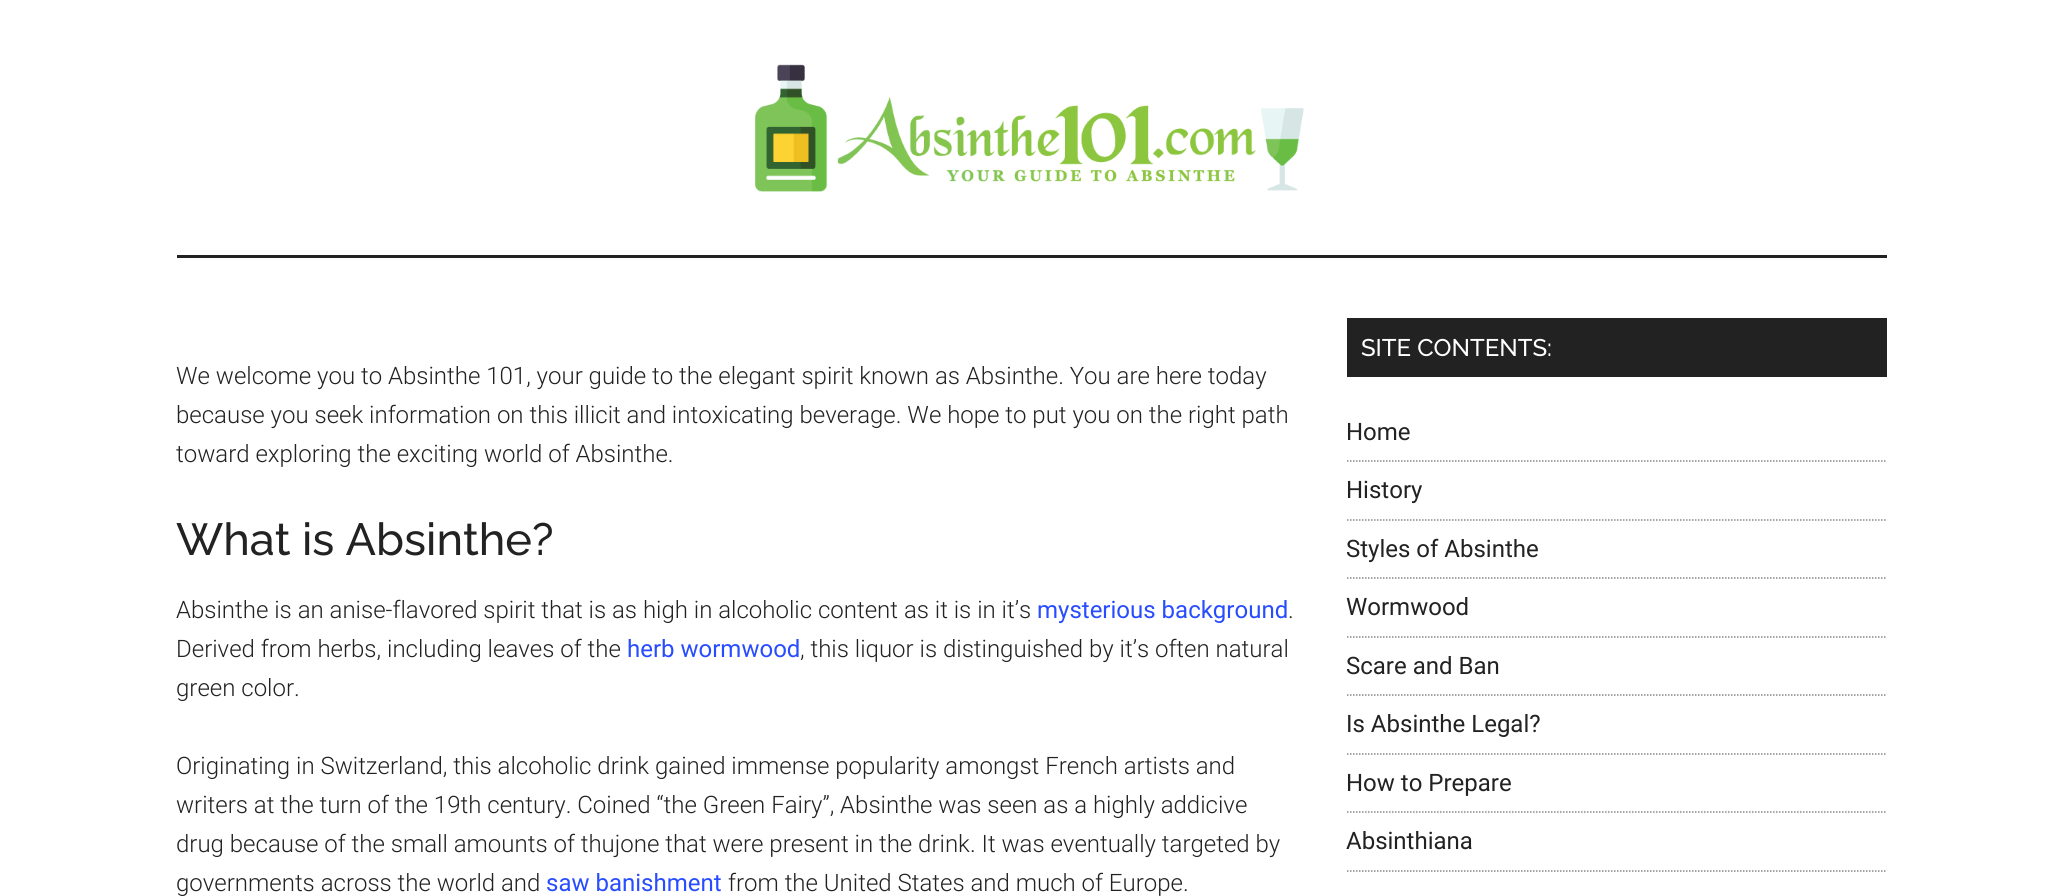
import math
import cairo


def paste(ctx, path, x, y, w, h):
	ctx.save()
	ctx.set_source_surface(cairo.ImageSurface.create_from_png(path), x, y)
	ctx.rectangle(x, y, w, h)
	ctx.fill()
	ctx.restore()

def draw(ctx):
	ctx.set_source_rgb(1, 1, 1)
	ctx.paint()
	ctx.set_source_rgb(0.133, 0.133, 0.133)
	ctx.rectangle(177, 255, 1710, 3)
	ctx.fill()
	paste(ctx, 'media/1.png', 755, 64, 549, 128)
	ctx.select_font_face('Roboto Light')
	ctx.set_font_size(24)
	for x, y, s in [
		(176, 384, 'We welcome you to Absinthe 101, your guide to the elegant spirit known as Absinthe. You are here today'),
		(176, 423, 'because you seek information on this illicit and intoxicating beverage. We hope to put you on the right path'),
		(176, 462, 'toward exploring the exciting world of Absinthe.'),
	]:
		ctx.move_to(x, y)
		ctx.show_text(s)
	ctx.select_font_face('Raleway Medium')
	ctx.set_font_size(45)
	ctx.move_to(176, 555)
	ctx.show_text('What is Absinthe?')
	ctx.select_font_face('Roboto Light')
	ctx.set_font_size(24)
	ctx.move_to(176, 618)
	ctx.show_text('Absinthe is an anise-flavored spirit that is as high in alcoholic content as it is in it’s')
	ctx.select_font_face('Roboto')
	ctx.set_source_rgb(0.157, 0.298, 1)
	ctx.move_to(1037, 618)
	ctx.show_text('mysterious background')
	ctx.select_font_face('Roboto Light')
	ctx.set_source_rgb(0.133, 0.133, 0.133)
	ctx.move_to(1288, 618)
	ctx.show_text('.')
	ctx.move_to(176, 657)
	ctx.show_text('Derived from herbs, including leaves of the')
	ctx.select_font_face('Roboto')
	ctx.set_source_rgb(0.157, 0.298, 1)
	ctx.move_to(627, 657)
	ctx.show_text('herb wormwood')
	ctx.select_font_face('Roboto Light')
	ctx.set_source_rgb(0.133, 0.133, 0.133)
	for x, y, s in [
		(800, 657, ', this liquor is distinguished by it’s often natural'),
		(176, 696, 'green color.'),
		(176, 774, 'Originating in Switzerland, this alcoholic drink gained immense popularity amongst French artists and'),
		(176, 813, 'writers at the turn of the 19th century. Coined “the Green Fairy”, Absinthe was seen as a highly addicive'),
		(176, 852, 'drug because of the small amounts of thujone that were present in the drink. It was eventually targeted by'),
		(176, 891, 'governments across the world and'),
	]:
		ctx.move_to(x, y)
		ctx.show_text(s)
	ctx.select_font_face('Roboto')
	ctx.set_source_rgb(0.157, 0.298, 1)
	ctx.move_to(546, 891)
	ctx.show_text('saw banishment')
	ctx.select_font_face('Roboto Light')
	ctx.set_source_rgb(0.133, 0.133, 0.133)
	ctx.move_to(728, 891)
	ctx.show_text('from the United States and much of Europe.')
	ctx.rectangle(1347, 318, 540, 59)
	ctx.fill()
	ctx.select_font_face('Raleway Medium')
	ctx.set_source_rgb(1, 1, 1)
	ctx.move_to(1361, 356)
	ctx.show_text('SITE CONTENTS:')
	ctx.new_path()
	ctx.move_to(1347, 461)
	ctx.line_to(1887, 461)
	ctx.set_source_rgb(0.533, 0.533, 0.533)
	ctx.set_line_width(1.5)
	ctx.set_dash([1.5, 1.5])
	ctx.stroke()
	ctx.select_font_face('Roboto')
	ctx.set_source_rgb(0.133, 0.133, 0.133)
	ctx.move_to(1346, 440)
	ctx.show_text('Home')
	ctx.new_path()
	ctx.move_to(1347, 520)
	ctx.line_to(1887, 520)
	ctx.set_source_rgb(0.533, 0.533, 0.533)
	ctx.stroke()
	ctx.set_source_rgb(0.133, 0.133, 0.133)
	ctx.move_to(1346, 498)
	ctx.show_text('History')
	ctx.new_path()
	ctx.move_to(1347, 578)
	ctx.line_to(1887, 578)
	ctx.set_source_rgb(0.533, 0.533, 0.533)
	ctx.stroke()
	ctx.set_source_rgb(0.133, 0.133, 0.133)
	ctx.move_to(1346, 557)
	ctx.show_text('Styles of Absinthe')
	ctx.new_path()
	ctx.move_to(1347, 637)
	ctx.line_to(1887, 637)
	ctx.set_source_rgb(0.533, 0.533, 0.533)
	ctx.stroke()
	ctx.set_source_rgb(0.133, 0.133, 0.133)
	ctx.move_to(1346, 615)
	ctx.show_text('Wormwood')
	ctx.new_path()
	ctx.move_to(1347, 695)
	ctx.line_to(1887, 695)
	ctx.set_source_rgb(0.533, 0.533, 0.533)
	ctx.stroke()
	ctx.set_source_rgb(0.133, 0.133, 0.133)
	ctx.move_to(1346, 674)
	ctx.show_text('Scare and Ban')
	ctx.new_path()
	ctx.move_to(1347, 754)
	ctx.line_to(1887, 754)
	ctx.set_source_rgb(0.533, 0.533, 0.533)
	ctx.stroke()
	ctx.set_source_rgb(0.133, 0.133, 0.133)
	ctx.move_to(1346, 732)
	ctx.show_text('Is Absinthe Legal?')
	ctx.new_path()
	ctx.move_to(1347, 812)
	ctx.line_to(1887, 812)
	ctx.set_source_rgb(0.533, 0.533, 0.533)
	ctx.stroke()
	ctx.set_source_rgb(0.133, 0.133, 0.133)
	ctx.move_to(1346, 791)
	ctx.show_text('How to Prepare')
	ctx.new_path()
	ctx.move_to(1347, 871)
	ctx.line_to(1887, 871)
	ctx.set_source_rgb(0.533, 0.533, 0.533)
	ctx.stroke()
	ctx.set_source_rgb(0.133, 0.133, 0.133)
	ctx.move_to(1346, 849)
	ctx.show_text('Absinthiana')


surface = cairo.ImageSurface(cairo.FORMAT_RGB24, 2062, 896)
ctx = cairo.Context(surface)
options = cairo.FontOptions()
options.set_hint_metrics(cairo.HINT_METRICS_OFF)
options.set_hint_style(cairo.HINT_STYLE_NONE)
ctx.set_font_options(options)
ctx.set_miter_limit(4)
draw(ctx)
surface.write_to_png('image.png')
